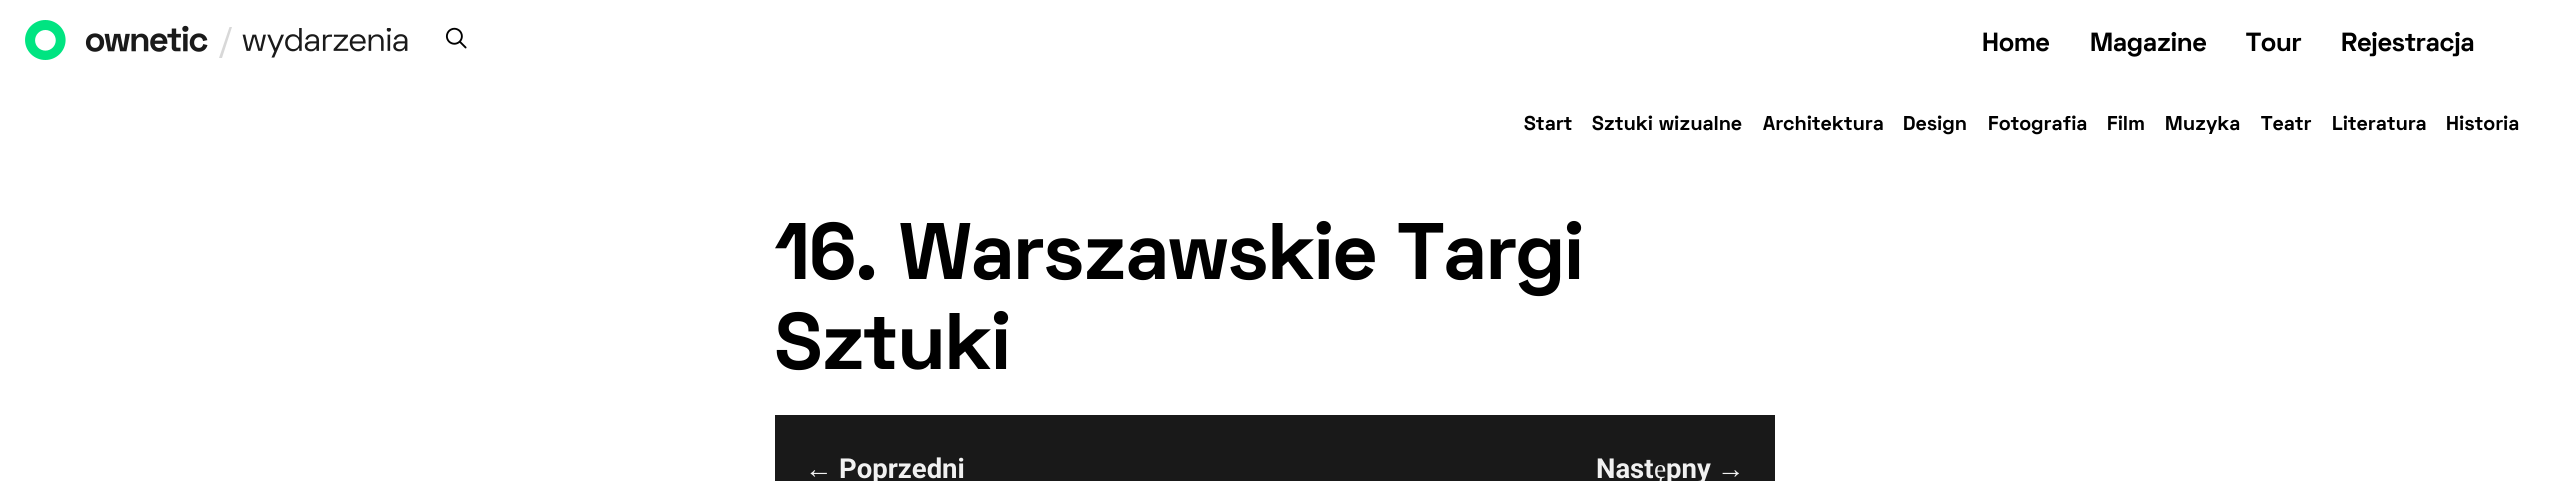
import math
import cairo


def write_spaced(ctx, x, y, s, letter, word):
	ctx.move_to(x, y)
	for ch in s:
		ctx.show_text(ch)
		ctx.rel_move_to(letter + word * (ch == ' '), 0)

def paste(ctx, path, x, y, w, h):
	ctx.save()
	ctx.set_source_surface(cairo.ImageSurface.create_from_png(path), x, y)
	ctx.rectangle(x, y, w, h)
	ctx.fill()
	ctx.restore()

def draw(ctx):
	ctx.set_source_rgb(1, 1, 1)
	ctx.paint()
	paste(ctx, 'media/1.png', 25, 20, 183, 40)
	ctx.set_source_rgb(0.847, 0.847, 0.847)
	ctx.new_path()
	ctx.move_to(232, 27)
	ctx.line_to(222, 58)
	ctx.line_to(219, 58)
	ctx.line_to(229.5, 27)
	ctx.close_path()
	ctx.fill()
	paste(ctx, 'media/2.png', 242, 28, 166, 30)
	paste(ctx, 'media/3.png', 445, 27, 22, 22)
	ctx.select_font_face('Space Grotesk', cairo.FONT_SLANT_NORMAL, cairo.FONT_WEIGHT_BOLD)
	ctx.set_font_size(26.25)
	ctx.set_source_rgb(0, 0, 0)
	for x, y, s in [
		(1982, 51, 'Home'),
		(2090, 51, 'Magazine'),
		(2246, 51, 'Tour'),
		(2341, 51, 'Rejestracja'),
	]:
		ctx.move_to(x, y)
		ctx.show_text(s)
	ctx.set_font_size(20)
	for x, y, s in [
		(1524, 130, 'Start'),
		(1592, 130, 'Sztuki wizualne'),
		(1763, 130, 'Architektura'),
		(1903, 130, 'Design'),
		(1988, 130, 'Fotografia'),
		(2107, 130, 'Film'),
		(2165, 130, 'Muzyka'),
		(2261, 130, 'Teatr'),
		(2332, 130, 'Literatura'),
		(2446, 130, 'Historia'),
	]:
		write_spaced(ctx, x, y, s, 0.4, 0)
	ctx.set_font_size(80)
	ctx.move_to(775, 279)
	ctx.show_text('16. Warszawskie Targi')
	ctx.move_to(775, 369)
	ctx.show_text('Sztuki')
	ctx.set_source_rgb(0.098, 0.098, 0.098)
	ctx.rectangle(775, 415, 1000, 66)
	ctx.fill()
	ctx.select_font_face('Liberation Serif')
	ctx.set_font_size(27.5)
	ctx.set_source_rgb(0.945, 0.945, 0.945)
	ctx.move_to(805, 478)
	ctx.show_text('←')
	ctx.select_font_face('Roboto', cairo.FONT_SLANT_NORMAL, cairo.FONT_WEIGHT_BOLD)
	ctx.move_to(839, 478)
	ctx.show_text('Poprzedni')
	ctx.move_to(1596, 478)
	ctx.show_text('Nast')
	ctx.select_font_face('Liberation Serif')
	ctx.move_to(1654, 478)
	ctx.show_text('ę')
	ctx.select_font_face('Roboto', cairo.FONT_SLANT_NORMAL, cairo.FONT_WEIGHT_BOLD)
	ctx.move_to(1666, 478)
	ctx.show_text('pny')
	ctx.select_font_face('Liberation Serif')
	ctx.move_to(1717, 478)
	ctx.show_text('→')


surface = cairo.ImageSurface(cairo.FORMAT_RGB24, 2549, 481)
ctx = cairo.Context(surface)
options = cairo.FontOptions()
options.set_hint_metrics(cairo.HINT_METRICS_OFF)
options.set_hint_style(cairo.HINT_STYLE_NONE)
ctx.set_font_options(options)
ctx.set_miter_limit(4)
draw(ctx)
surface.write_to_png('image.png')
